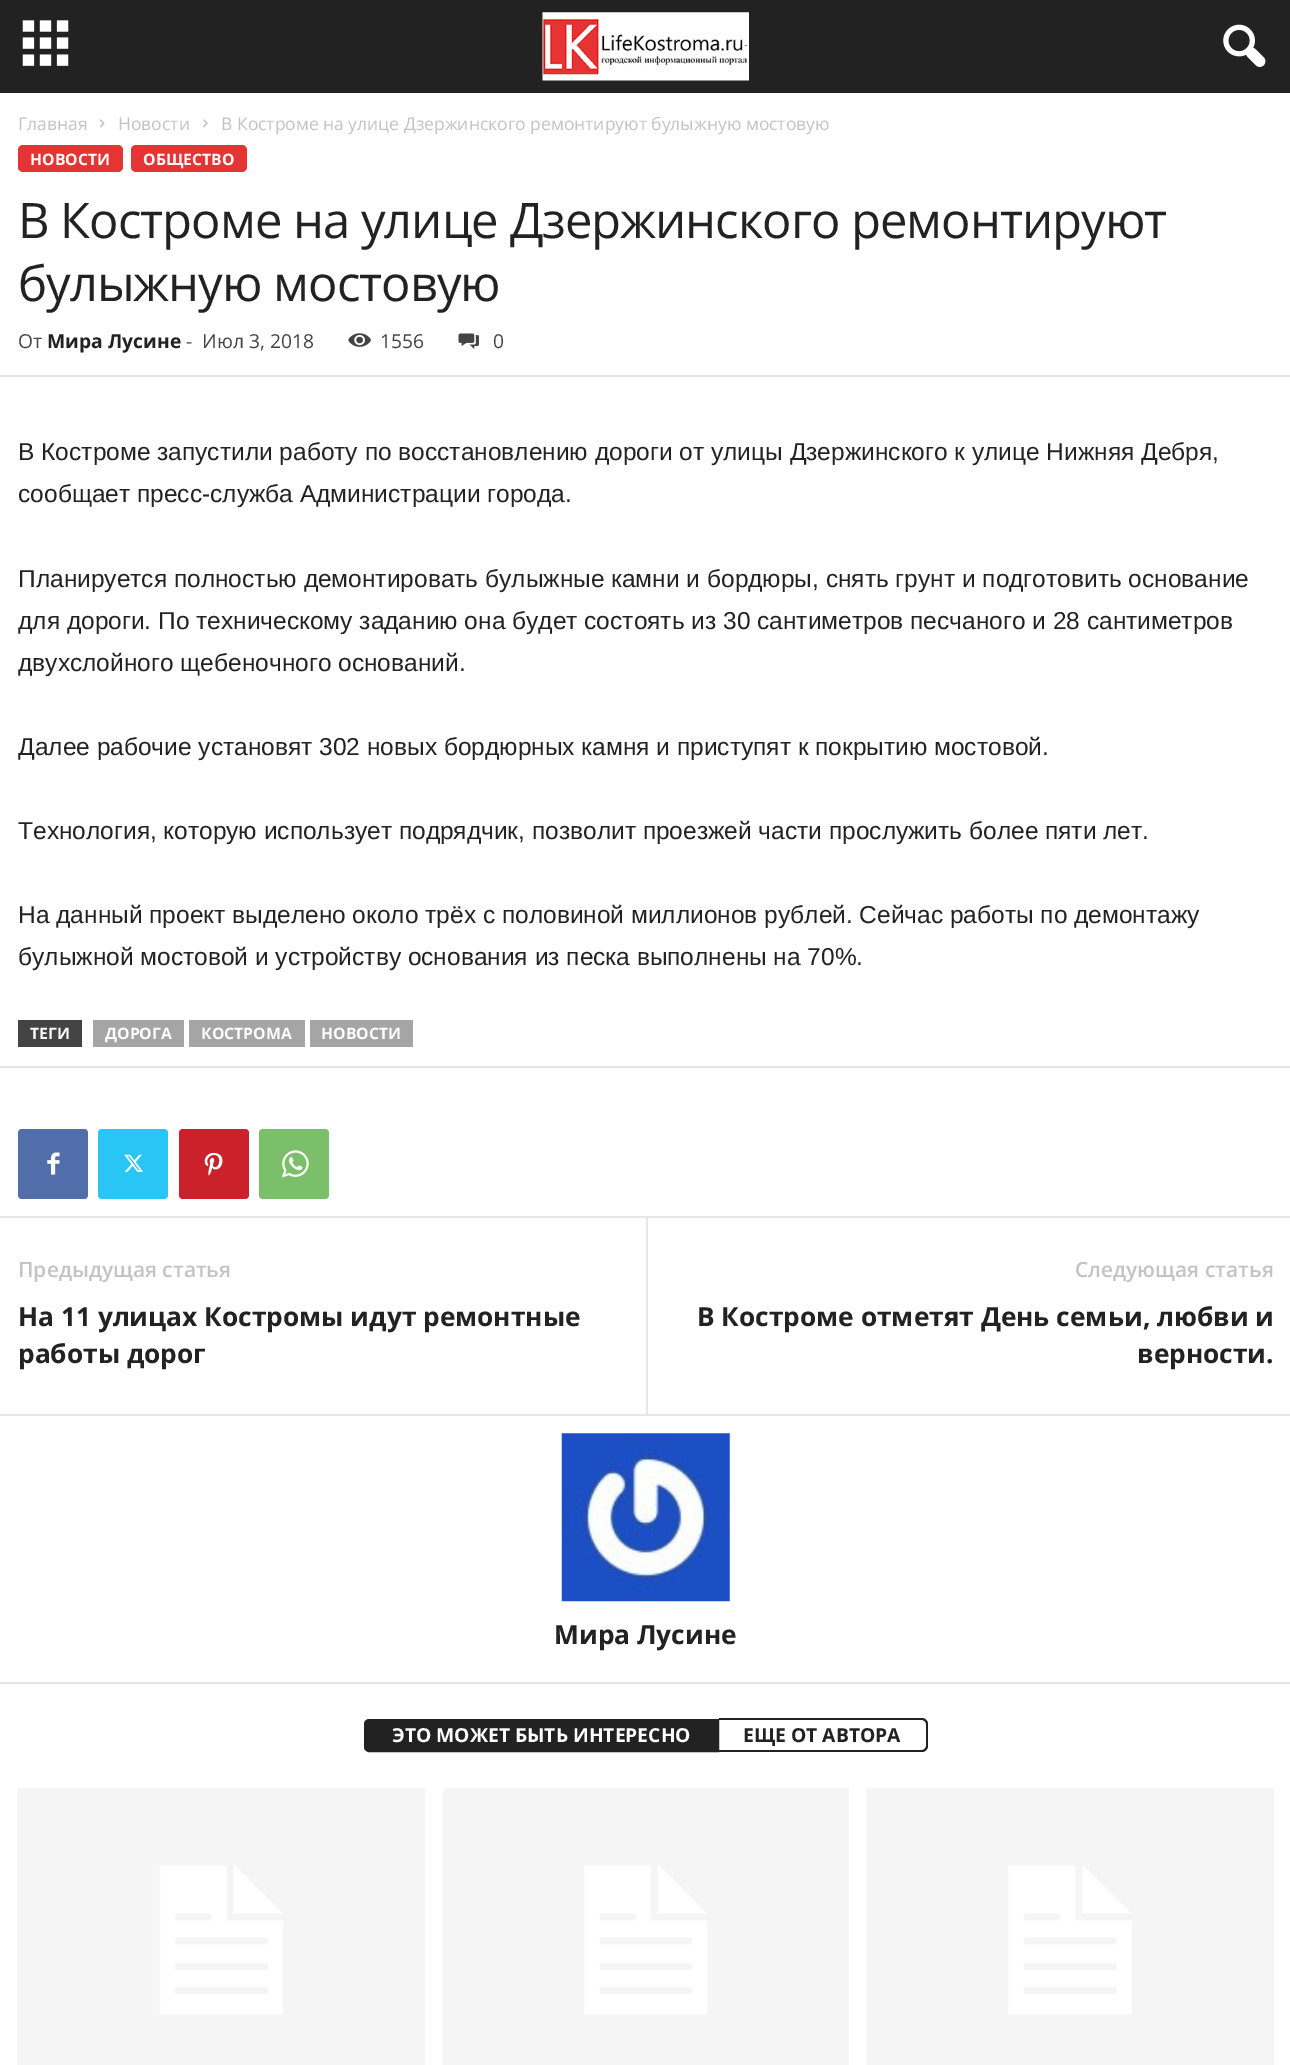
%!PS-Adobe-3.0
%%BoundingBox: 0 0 1290 2065
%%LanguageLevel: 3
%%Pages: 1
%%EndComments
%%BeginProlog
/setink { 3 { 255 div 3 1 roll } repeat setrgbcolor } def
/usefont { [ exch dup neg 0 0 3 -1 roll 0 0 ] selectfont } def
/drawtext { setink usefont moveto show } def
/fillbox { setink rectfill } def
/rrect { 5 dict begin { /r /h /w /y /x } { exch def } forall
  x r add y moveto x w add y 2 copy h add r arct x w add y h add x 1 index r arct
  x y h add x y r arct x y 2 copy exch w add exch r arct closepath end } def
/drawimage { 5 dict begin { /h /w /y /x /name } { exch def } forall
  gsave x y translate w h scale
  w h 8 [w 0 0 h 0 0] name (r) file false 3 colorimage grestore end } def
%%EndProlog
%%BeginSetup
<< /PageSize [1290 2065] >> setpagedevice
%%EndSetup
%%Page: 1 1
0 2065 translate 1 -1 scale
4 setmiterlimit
0 0 1290 2065 255 255 255 fillbox
0 0 1290 93 34 34 34 fillbox
(assets/img1.rgb) 22 20 47 46 drawimage
(assets/img2.rgb) 542 12 207 69 drawimage
(assets/img3.rgb) 1223 24 43 43 drawimage
(Главная) 18 130 /OpenSans-Regular 17.5 195 195 195 drawtext
(assets/img4.rgb) 99 119 6 9 drawimage
(Новости) 118 130 /OpenSans-Regular 17.5 195 195 195 drawtext
(assets/img5.rgb) 203 119 5 9 drawimage
(В Костроме на улице Дзержинского ремонтируют булыжную мостовую) 221 130 /OpenSans-Regular 17.5 195 195 195 drawtext
229 52 52 setink
18 145 105 27 5 rrect fill
(НОВОСТИ) 30 165 /OpenSans-Bold 15.75 255 255 255 drawtext
229 52 52 setink
131 145 116 27 5 rrect fill
(ОБЩЕСТВО) 143 165 /OpenSans-Bold 15.75 255 255 255 drawtext
/OpenSans-Regular 49 usefont
34 34 34 setink
18 238 moveto -1 0 (В Костроме на улице Дзержинского ремонтируют) ashow
18 301 moveto -1 0 (булыжную мостовую) ashow
(От) 18 348 /OpenSans-Regular 19.25 68 68 68 drawtext
(Мира Лусине) 47 348 /OpenSans-Bold 19.25 34 34 34 drawtext
(-) 186 348 /OpenSans-Regular 19.25 68 68 68 drawtext
(Июл 3, 2018) 202 348 /OpenSans-Regular 19.25 68 68 68 drawtext
(assets/img6.rgb) 348 333 23 14 drawimage
(1556) 380 348 /OpenSans-Regular 19.25 68 68 68 drawtext
(assets/img7.rgb) 458 333 21 17 drawimage
(0) 493 348 /OpenSans-Regular 19.25 68 68 68 drawtext
0 375 1290 2 230 230 230 fillbox
(В Костроме запустили работу по восстановлению дороги от улицы Дзержинского к улице Нижняя Дебря,) 18 460 /LiberationSans-Regular 24.5 34 34 34 drawtext
(сообщает пресс-служба Администрации города.) 18 502 /LiberationSans-Regular 24.5 34 34 34 drawtext
(Планируется полностью демонтировать булыжные камни и бордюры, снять грунт и подготовить основание) 18 587 /LiberationSans-Regular 24.5 34 34 34 drawtext
(для дороги. По техническому заданию она будет состоять из 30 сантиметров песчаного и 28 сантиметров) 18 629 /LiberationSans-Regular 24.5 34 34 34 drawtext
(двухслойного щебеночного оснований.) 18 671 /LiberationSans-Regular 24.5 34 34 34 drawtext
(Далее рабочие установят 302 новых бордюрных камня и приступят к покрытию мостовой.) 18 755 /LiberationSans-Regular 24.5 34 34 34 drawtext
(Технология, которую использует подрядчик, позволит проезжей части прослужить более пяти лет.) 18 839 /LiberationSans-Regular 24.5 34 34 34 drawtext
(На данный проект выделено около трёх с половиной миллионов рублей. Сейчас работы по демонтажу) 18 923 /LiberationSans-Regular 24.5 34 34 34 drawtext
(булыжной мостовой и устройству основания из песка выполнены на 70%.) 18 965 /LiberationSans-Regular 24.5 34 34 34 drawtext
18 1020 64 27 68 68 68 fillbox
(ТЕГИ) 30 1039 /OpenSans-Bold 15.75 255 255 255 drawtext
93 1020 91 27 165 165 165 fillbox
(ДОРОГА) 105 1039 /OpenSans-Bold 15.75 255 255 255 drawtext
189 1020 116 27 165 165 165 fillbox
(КОСТРОМА) 201 1039 /OpenSans-Bold 15.75 255 255 255 drawtext
310 1020 103 27 165 165 165 fillbox
(НОВОСТИ) 321 1039 /OpenSans-Bold 15.75 255 255 255 drawtext
0 1066 1290 2 230 230 230 fillbox
81 110 171 setink
18 1129 70 70 4 rrect fill
(assets/img8.rgb) 47 1152 13 23 drawimage
41 197 246 setink
98 1129 70 70 4 rrect fill
(assets/img9.rgb) 124 1154 19 18 drawimage
202 33 42 setink
179 1129 70 70 4 rrect fill
(assets/img10.rgb) 204 1152 19 24 drawimage
123 191 106 setink
259 1129 70 70 4 rrect fill
(assets/img11.rgb) 281 1150 28 28 drawimage
0 1216 1290 2 230 230 230 fillbox
(Предыдущая статья) 18 1277 /OpenSans-SemiBold 21 195 195 195 drawtext
(На 11 улицах Костромы идут ремонтные) 18 1326 /OpenSans-Bold 26.25 34 34 34 drawtext
(работы дорог) 18 1363 /OpenSans-Bold 26.25 34 34 34 drawtext
646 1218 2 196 230 230 230 fillbox
(Следующая статья) 1075 1277 /OpenSans-SemiBold 21 195 195 195 drawtext
(В Костроме отметят День семьи, любви и) 697 1326 /OpenSans-Bold 26.25 34 34 34 drawtext
(верности.) 1137 1363 /OpenSans-Bold 26.25 34 34 34 drawtext
0 1414 1290 2 230 230 230 fillbox
(assets/img12.rgb) 561 1433 169 169 drawimage
(Мира Лусине) 554 1644 /OpenSans-Bold 26.25 34 34 34 drawtext
0 1682 1290 2 230 230 230 fillbox
34 34 34 setink
369 1720 moveto 718 1720 lineto 718 1751 lineto 369 1751 lineto 367 1751 365 1749 365 1747 curveto 365 1724 lineto 365 1722 367 1720 369 1720 curveto closepath gsave fill grestore
2 setlinewidth
stroke
(ЭТО МОЖЕТ БЫТЬ ИНТЕРЕСНО) 392 1742 /OpenSans-Bold 19.25 255 255 255 drawtext
34 34 34 setink
719 1718 moveto 922 1718 lineto 925 1718 928 1721 928 1724 curveto 928 1746 lineto 928 1749 925 1752 922 1752 curveto 719 1752 lineto closepath 719 1720 moveto 922 1720 lineto 924 1720 926 1722 926 1724 curveto 926 1746 lineto 926 1748 924 1750 922 1750 curveto 719 1750 lineto closepath eofill
(ЕЩЕ ОТ АВТОРА) 743 1742 /OpenSans-Bold 19.25 34 34 34 drawtext
(assets/img13.rgb) 17 1788 408 277 drawimage
(assets/img14.rgb) 443 1788 406 277 drawimage
(assets/img15.rgb) 866 1788 408 277 drawimage
showpage
%%EOF
